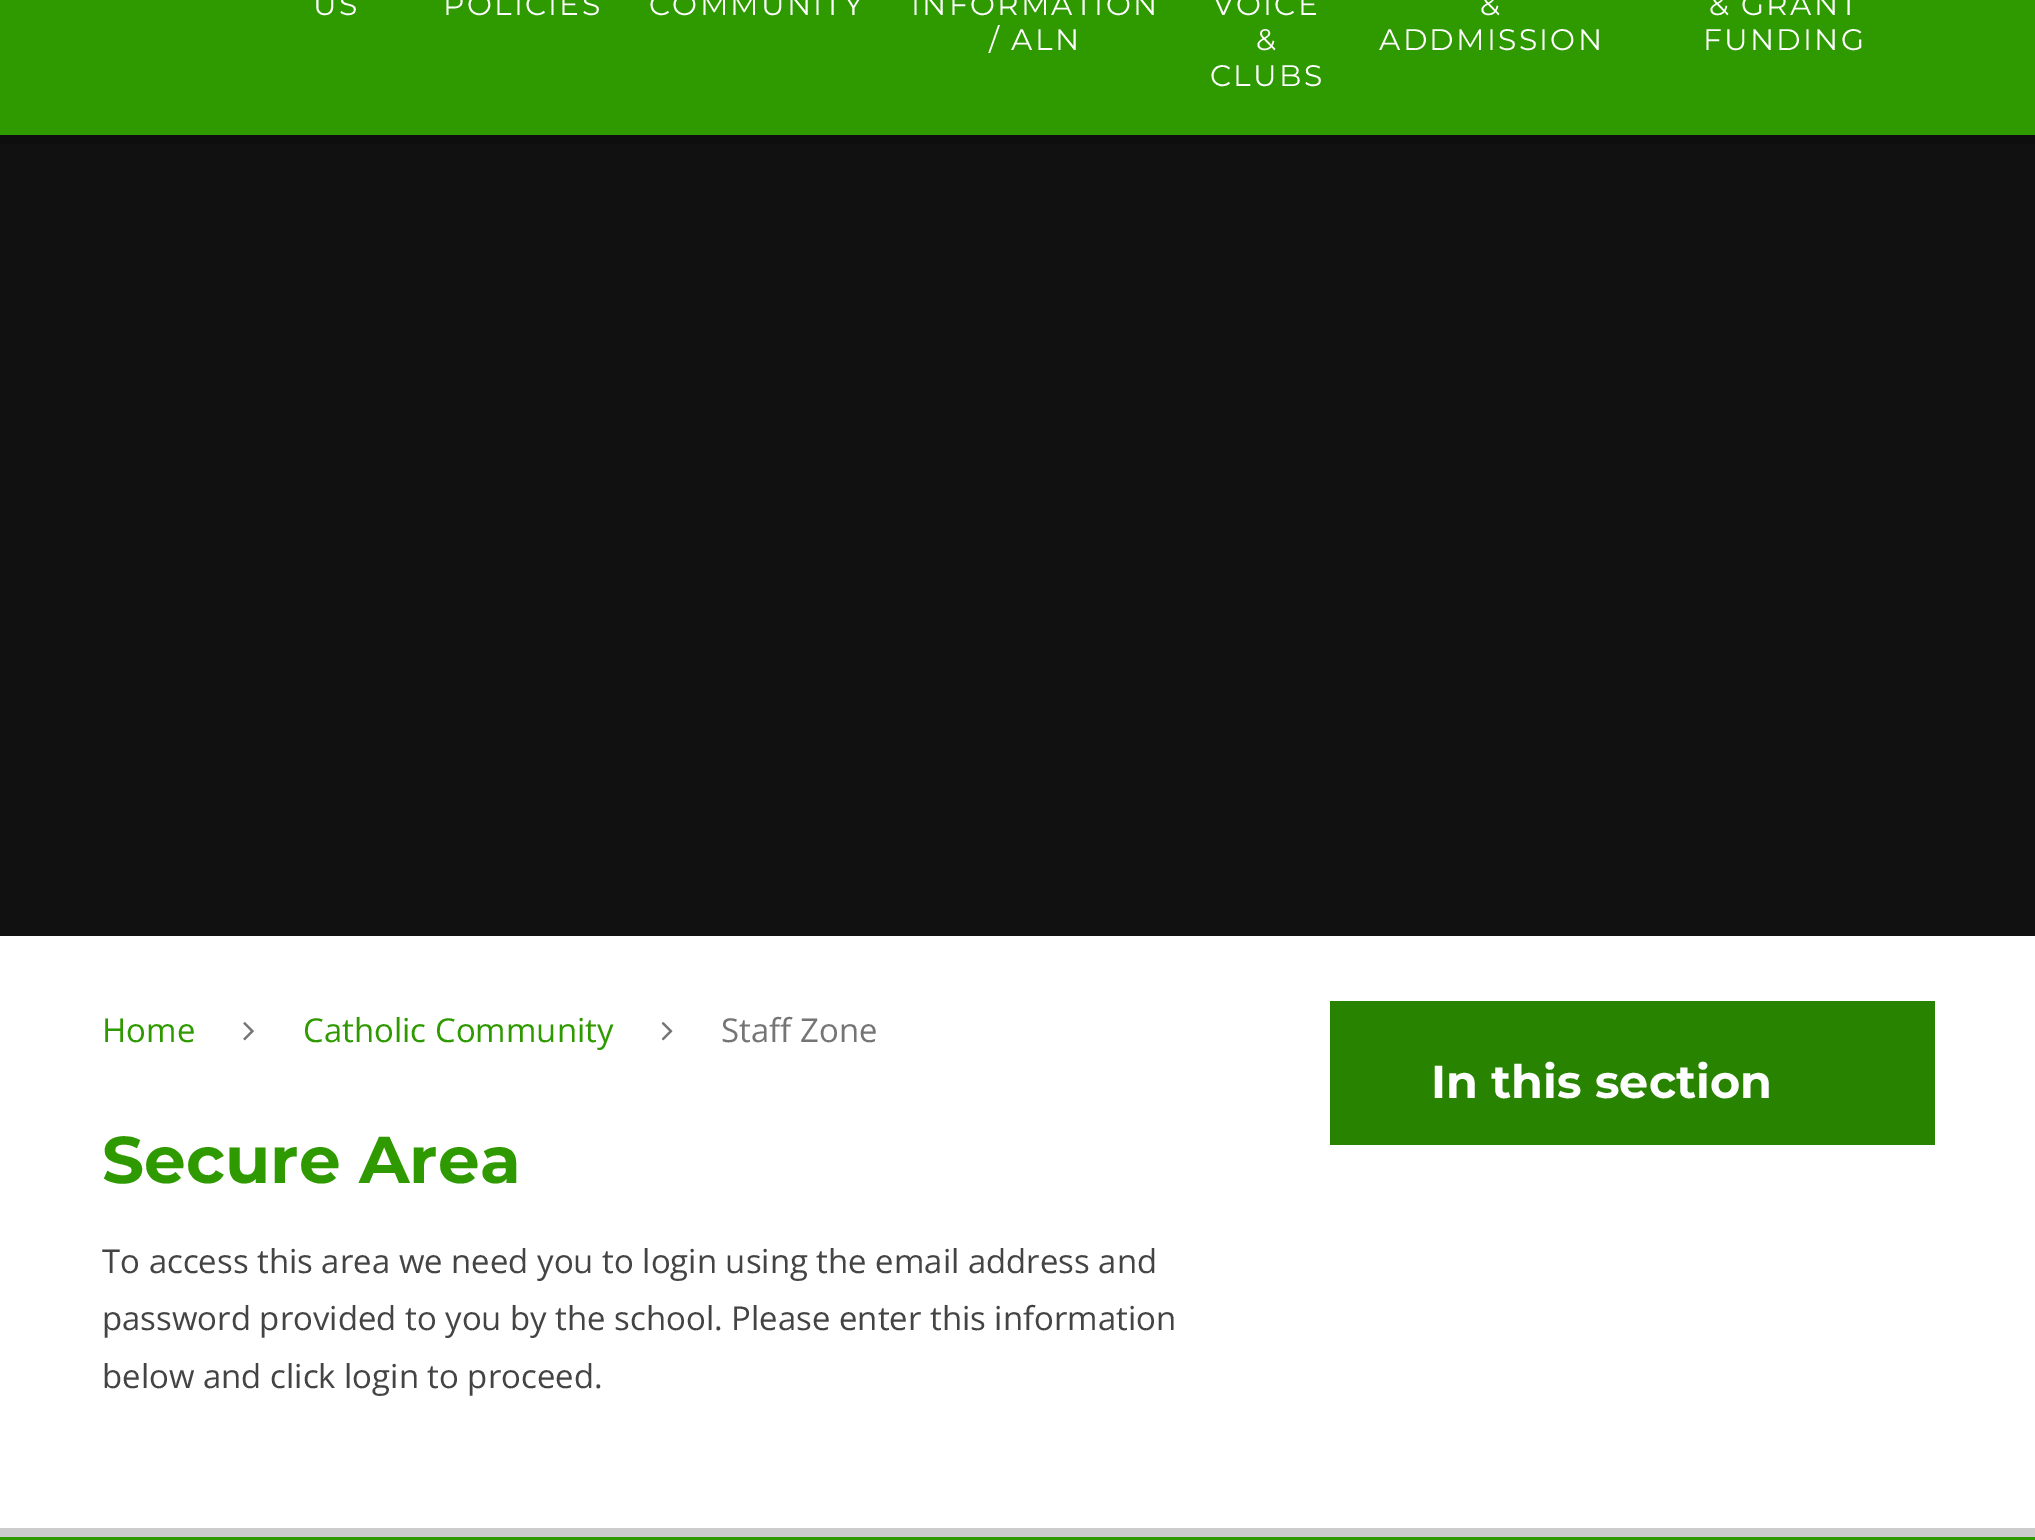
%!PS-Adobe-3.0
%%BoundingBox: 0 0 2035 1540
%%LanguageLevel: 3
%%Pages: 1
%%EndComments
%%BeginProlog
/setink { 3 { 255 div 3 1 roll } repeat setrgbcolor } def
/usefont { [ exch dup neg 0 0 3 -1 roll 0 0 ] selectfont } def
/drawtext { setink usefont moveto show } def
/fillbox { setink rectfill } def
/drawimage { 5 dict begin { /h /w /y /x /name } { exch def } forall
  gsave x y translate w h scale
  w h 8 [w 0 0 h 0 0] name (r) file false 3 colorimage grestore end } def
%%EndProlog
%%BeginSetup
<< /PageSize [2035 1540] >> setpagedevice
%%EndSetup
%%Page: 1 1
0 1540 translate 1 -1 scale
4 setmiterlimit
0 0 2035 1540 46 154 0 fillbox
/Montserrat-Regular 29.75 usefont
255 255 255 setink
313 15 moveto 2.25 0 (US) ashow
443 15 moveto 2.25 0 (POLICIES) ashow
649 15 moveto 2.25 0 (COMMUNITY) ashow
911 15 moveto 2.25 0 (INFORMATION) ashow
989 50 moveto 2.25 0 (/ ALN) ashow
1213 15 moveto 2.25 0 (VOICE) ashow
1256 50 moveto 2.25 0 (&) ashow
1210 86 moveto 2.25 0 (CLUBS) ashow
1480 15 moveto 2.25 0 (&) ashow
1379 50 moveto 2.25 0 (ADDMISSION) ashow
1709 15 moveto 2.25 0 (& GRANT) ashow
1703 50 moveto 2.25 0 (FUNDING) ashow
0 135 2035 9 14 14 14 fillbox
0 144 2035 792 17 17 17 fillbox
0 936 2035 592 255 255 255 fillbox
(Home) 102 1042 /OpenSans-Regular 32.95 46 154 0 drawtext
(assets/img1.rgb) 243 1022 11 19 drawimage
(Catholic Community) 303 1042 /OpenSans-Regular 32.95 46 154 0 drawtext
(assets/img2.rgb) 661 1022 12 19 drawimage
(Staff Zone) 721 1042 /OpenSans-Regular 32.95 117 117 117 drawtext
(Secure Area) 102 1183 /Montserrat-Bold 66 46 154 0 drawtext
(To access this area we need you to login using the email address and) 102 1273 /OpenSans-Regular 32.95 68 68 68 drawtext
(password provided to you by the school. Please enter this information) 102 1330 /OpenSans-Regular 32.95 68 68 68 drawtext
(below and click login to proceed.) 102 1388 /OpenSans-Regular 32.95 68 68 68 drawtext
1330 1001 605 144 39 131 0 fillbox
(In this section) 1431 1098 /Montserrat-Bold 46.25 255 255 255 drawtext
0 1528 2035 9 204 204 204 fillbox
showpage
%%EOF
